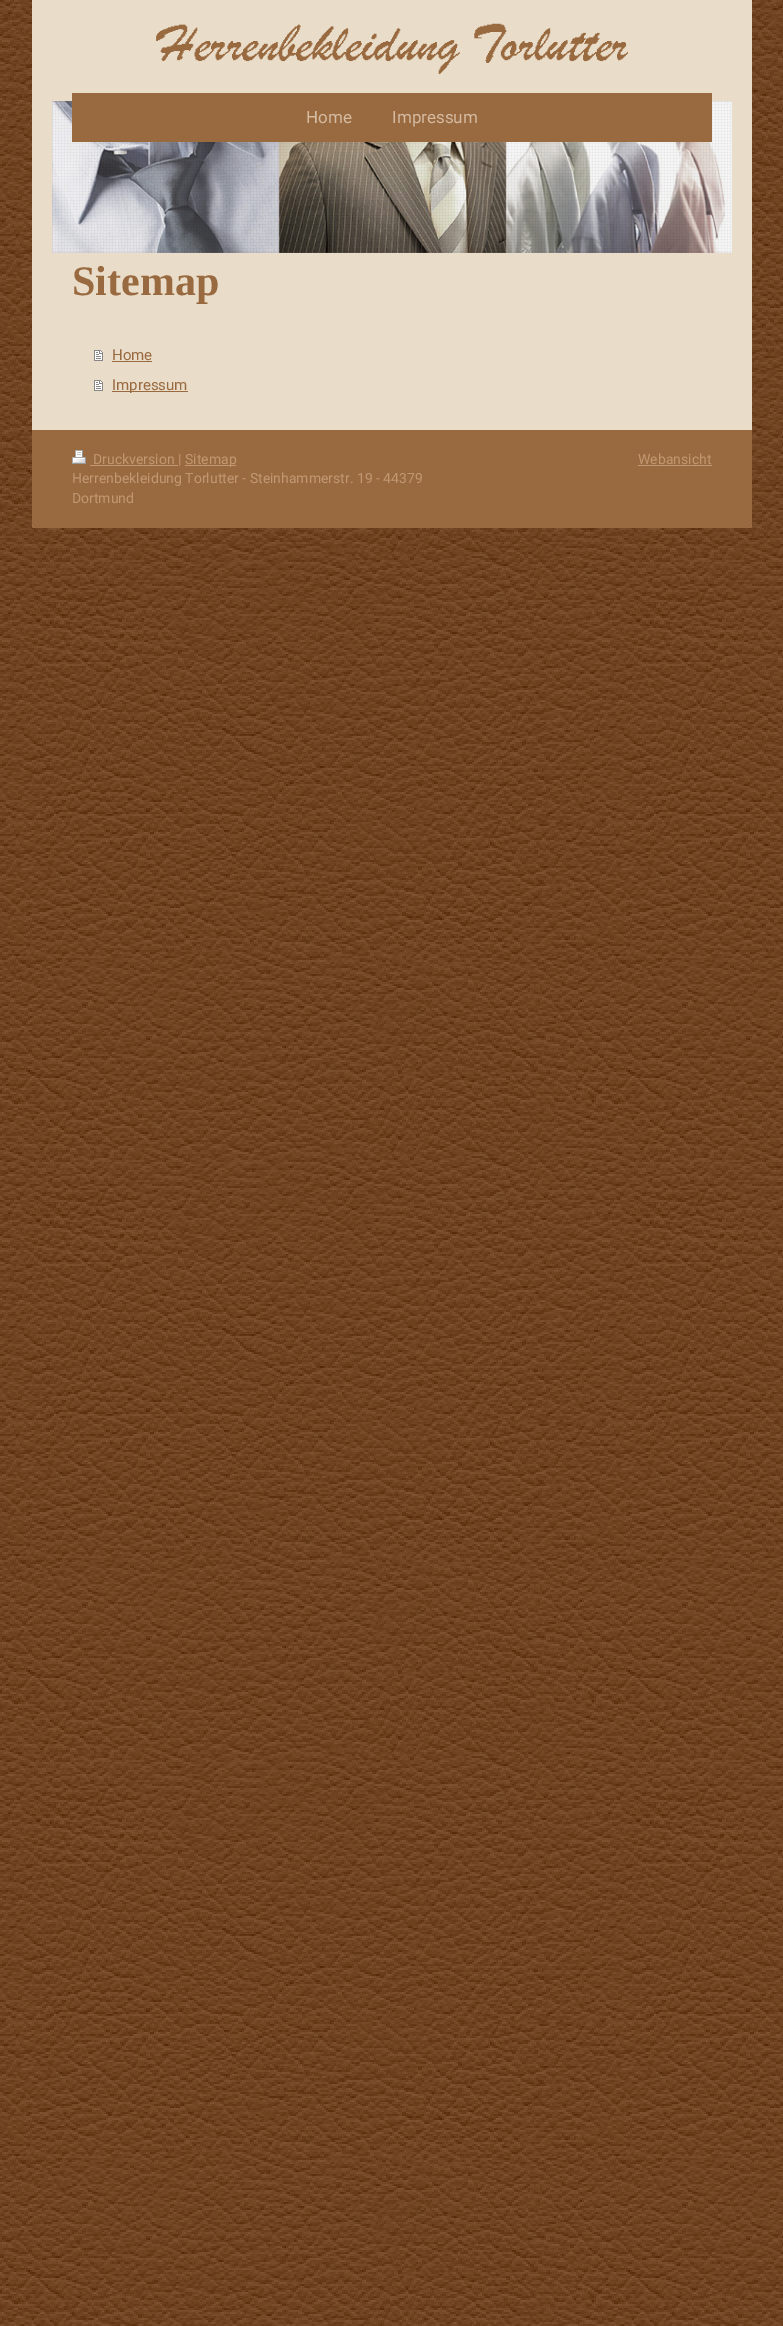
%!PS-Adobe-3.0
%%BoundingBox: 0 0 783 2326
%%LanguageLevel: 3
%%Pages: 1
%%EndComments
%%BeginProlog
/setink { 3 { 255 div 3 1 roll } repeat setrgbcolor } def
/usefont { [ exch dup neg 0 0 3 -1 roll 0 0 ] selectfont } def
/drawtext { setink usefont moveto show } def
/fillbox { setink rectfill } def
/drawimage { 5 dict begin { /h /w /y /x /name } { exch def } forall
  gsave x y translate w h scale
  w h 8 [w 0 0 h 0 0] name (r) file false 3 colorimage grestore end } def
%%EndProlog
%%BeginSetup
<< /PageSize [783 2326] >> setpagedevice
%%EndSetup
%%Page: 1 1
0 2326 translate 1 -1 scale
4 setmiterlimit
0 0 783 2326 255 255 255 fillbox
(assets/img1.rgb) 0 0 783 2326 drawimage
233 221 201 setink
32 0 moveto 752 0 lineto 752 525 lineto 752 526.5 750.5 528 749 528 curveto 35 528 lineto 33.5 528 32 526.5 32 525 curveto closepath fill
(assets/img2.rgb) 156 23 472 51 drawimage
(assets/img3.rgb) 52 101 680 152 drawimage
(assets/img4.rgb) 52 101 680 152 drawimage
72 93 640 49 153 106 64 fillbox
(Home) 306 123 /Roboto-Regular 17 214 187 163 drawtext
(Impressum) 392 123 /Roboto-Regular 17 214 187 163 drawtext
(Sitemap) 72 295 /LiberationSerif-Bold 42 153 106 64 drawtext
(assets/img5.rgb) 94 350 9 11 drawimage
(Home) 112 360 /Roboto-Regular 15 153 106 64 drawtext
112 361 40 1 153 106 64 fillbox
(assets/img5.rgb) 94 380 9 11 drawimage
112 391 76 1 153 106 64 fillbox
(Impressum) 112 390 /Roboto-Regular 15 153 106 64 drawtext
32 430 moveto 752 430 lineto 752 525 lineto 752 526.5 750.5 528 749 528 curveto 35 528 lineto 33.5 528 32 526.5 32 525 curveto closepath fill
(assets/img6.rgb) 72 450 14 14 drawimage
90 465 88 1 194 152 115 fillbox
(Druckversion |) 93 464 /Roboto-Regular 14 194 152 115 drawtext
185 465 51 1 194 152 115 fillbox
(Sitemap) 185 464 /Roboto-Regular 14 194 152 115 drawtext
(Herrenbekleidung Torlutter - Steinhammerstr. 19 - 44379) 72 483 /Roboto-Regular 14 194 152 115 drawtext
(Dortmund) 72 503 /Roboto-Regular 14 194 152 115 drawtext
(Webansicht) 638 464 /Roboto-Regular 14 194 152 115 drawtext
638 465 74 1 194 152 115 fillbox
showpage
%%EOF
